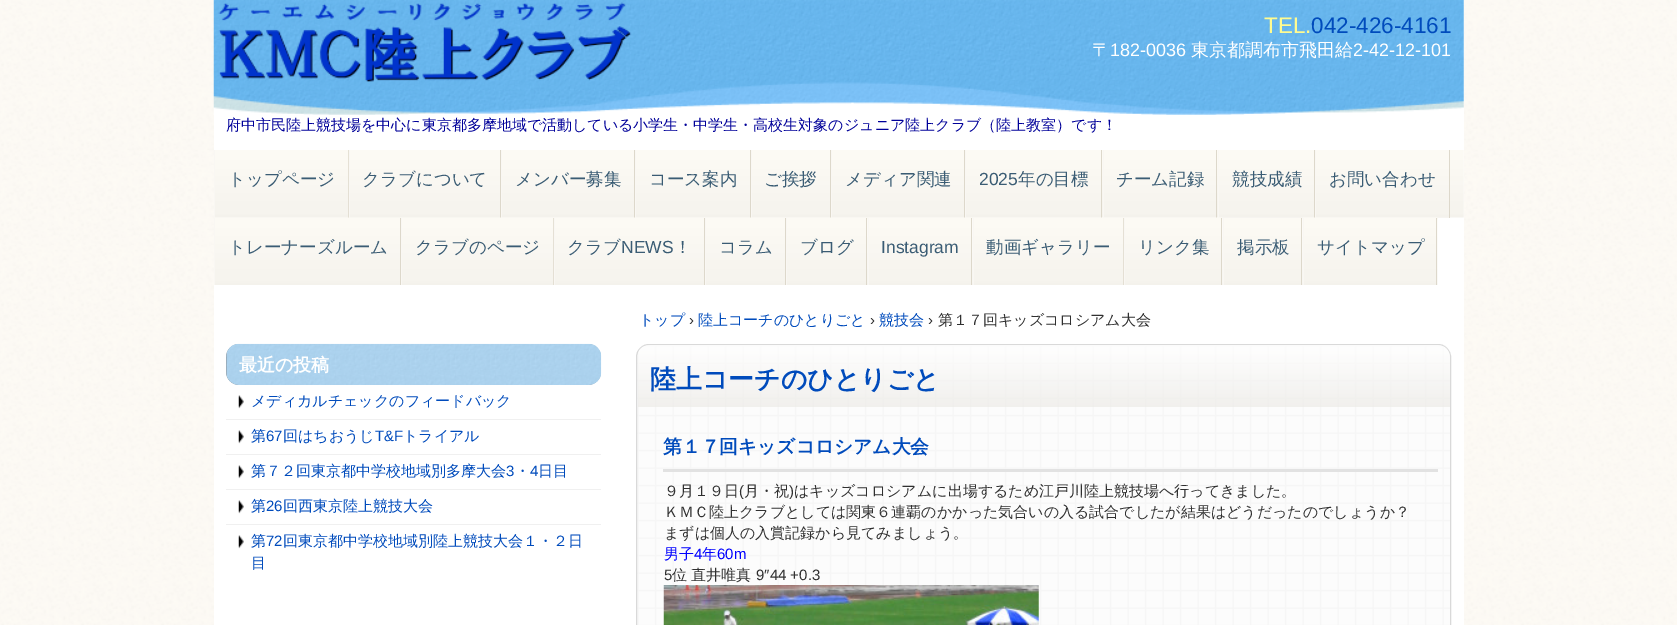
%!PS-Adobe-3.0
%%BoundingBox: 0 0 1677 625
%%LanguageLevel: 3
%%Pages: 1
%%EndComments
%%BeginProlog
/setink { 3 { 255 div 3 1 roll } repeat setrgbcolor } def
/usefont { [ exch dup neg 0 0 3 -1 roll 0 0 ] selectfont } def
/drawtext { setink usefont moveto show } def
/fillbox { setink rectfill } def
/rrect { 5 dict begin { /r /h /w /y /x } { exch def } forall
  x r add y moveto x w add y 2 copy h add r arct x w add y h add x 1 index r arct
  x y h add x y r arct x y 2 copy exch w add exch r arct closepath end } def
/drawimage { 5 dict begin { /h /w /y /x /name } { exch def } forall
  gsave x y translate w h scale
  w h 8 [w 0 0 h 0 0] name (r) file false 3 colorimage grestore end } def
%%EndProlog
%%BeginSetup
<< /PageSize [1677 625] >> setpagedevice
%%EndSetup
%%Page: 1 1
0 625 translate 1 -1 scale
4 setmiterlimit
0 0 1677 625 255 255 255 fillbox
(assets/img1.rgb) 0 0 1677 625 drawimage
214 0 1250 625 255 255 255 fillbox
(assets/img2.rgb) 213 0 1251 115 drawimage
(TEL.) 1264 33 /LiberationSans-Regular 22.5 255 251 144 drawtext
(042-426-4161) 1311 33 /LiberationSans-Regular 22.5 0 75 188 drawtext
(〒) 1092 56 /WenQuanYiZenHei-Medium 18 255 255 255 drawtext
(182-0036) 1110 56 /LiberationSans-Regular 18 255 255 255 drawtext
(東京都調布市飛田給) 1191 56 /WenQuanYiZenHei-Medium 18 255 255 255 drawtext
(2-42-12-101) 1353 56 /LiberationSans-Regular 18 255 255 255 drawtext
(assets/img3.rgb) 218 2 414 80 drawimage
(府中市民陸上競技場を中心に東京都多摩地域で活動している小学生・中学生・高校生対象のジュニア陸上クラブ（陸上教室）です！) 226 130 /WenQuanYiZenHei-Medium 15 0 0 153 drawtext
(assets/img4.rgb) 215 150 1249 68 drawimage
214 217 134 1 246 244 240 fillbox
348 150 1 68 221 216 203 fillbox
214 150 1 68 249 247 243 fillbox
(トップページ) 228 185 /WenQuanYiZenHei-Medium 17.5 58 92 116 drawtext
(assets/img5.rgb) 348 150 152 68 drawimage
500 150 1 68 221 216 203 fillbox
349 150 1 68 249 247 243 fillbox
(クラブについて) 362 185 /WenQuanYiZenHei-Medium 17.5 58 92 116 drawtext
502 217 249 1 246 244 240 fillbox
634 150 1 68 221 216 203 fillbox
501 150 1 68 249 247 243 fillbox
(メンバー募集) 515 185 /WenQuanYiZenHei-Medium 17.5 58 92 116 drawtext
750 150 1 68 221 216 203 fillbox
635 150 1 68 249 247 243 fillbox
(コース案内) 649 185 /WenQuanYiZenHei-Medium 17.5 58 92 116 drawtext
752 217 79 1 246 244 240 fillbox
830 150 1 68 221 216 203 fillbox
751 150 1 68 249 247 243 fillbox
(ご挨拶) 764 185 /WenQuanYiZenHei-Medium 17.5 58 92 116 drawtext
832 217 270 1 246 244 240 fillbox
964 150 1 68 221 216 203 fillbox
831 150 1 68 249 247 243 fillbox
(メディア関連) 845 185 /WenQuanYiZenHei-Medium 17.5 58 92 116 drawtext
1101 150 1 68 221 216 203 fillbox
965 150 1 68 249 247 243 fillbox
(2025) 979 185 /LiberationSans-Regular 17.5 58 92 116 drawtext
(年の目標) 1018 185 /WenQuanYiZenHei-Medium 17.5 58 92 116 drawtext
1103 217 114 1 246 244 240 fillbox
1216 150 1 68 221 216 203 fillbox
1103 150 1 68 249 247 243 fillbox
(チーム記録) 1116 185 /WenQuanYiZenHei-Medium 17.5 58 92 116 drawtext
1218 217 232 1 246 244 240 fillbox
1314 150 1 68 221 216 203 fillbox
1218 150 1 68 249 247 243 fillbox
(競技成績) 1232 185 /WenQuanYiZenHei-Medium 17.5 58 92 116 drawtext
1449 150 1 68 221 216 203 fillbox
1315 150 1 68 249 247 243 fillbox
(お問い合わせ) 1329 185 /WenQuanYiZenHei-Medium 17.5 58 92 116 drawtext
(assets/img6.rgb) 214 217 188 68 drawimage
400 218 1 67 221 216 203 fillbox
214 218 1 67 249 247 243 fillbox
(トレーナーズルーム) 228 253 /WenQuanYiZenHei-Medium 17.5 58 92 116 drawtext
(assets/img7.rgb) 401 217 153 68 drawimage
553 218 1 1 252 250 244 fillbox
553 218 1 67 221 216 203 fillbox
401 218 1 67 249 247 243 fillbox
(クラブのページ) 415 253 /WenQuanYiZenHei-Medium 17.5 58 92 116 drawtext
(assets/img8.rgb) 553 217 152 68 drawimage
704 218 1 67 221 216 203 fillbox
554 218 1 67 249 247 243 fillbox
(クラブ) 567 253 /WenQuanYiZenHei-Medium 17.5 58 92 116 drawtext
(NEWS) 621 253 /LiberationSans-Regular 17.5 58 92 116 drawtext
(！) 674 253 /WenQuanYiZenHei-Medium 17.5 58 92 116 drawtext
(assets/img9.rgb) 705 217 82 68 drawimage
785 218 1 67 221 216 203 fillbox
705 218 1 67 249 247 243 fillbox
(コラム) 719 253 /WenQuanYiZenHei-Medium 17.5 58 92 116 drawtext
(assets/img10.rgb) 786 217 82 68 drawimage
867 218 1 1 252 250 244 fillbox
866 218 1 67 221 216 203 fillbox
786 218 1 67 249 247 243 fillbox
(ブログ) 800 253 /WenQuanYiZenHei-Medium 17.5 58 92 116 drawtext
(assets/img11.rgb) 867 217 106 68 drawimage
972 218 1 1 252 250 244 fillbox
971 218 1 67 221 216 203 fillbox
868 218 1 67 249 247 243 fillbox
(Instagram) 881 253 /LiberationSans-Regular 17.5 58 92 116 drawtext
(assets/img12.rgb) 972 217 152 68 drawimage
1123 218 1 1 252 250 244 fillbox
1123 218 1 67 221 216 203 fillbox
973 218 1 67 249 247 243 fillbox
(動画ギャラリー) 986 253 /WenQuanYiZenHei-Medium 17.5 58 92 116 drawtext
(assets/img13.rgb) 1123 217 100 68 drawimage
1222 218 1 1 252 250 244 fillbox
1221 218 1 67 221 216 203 fillbox
1124 218 1 67 249 247 243 fillbox
(リンク集) 1138 253 /WenQuanYiZenHei-Medium 17.5 58 92 116 drawtext
(assets/img14.rgb) 1222 218 81 67 drawimage
1302 218 1 1 252 250 244 fillbox
1301 218 1 67 221 216 203 fillbox
1223 218 1 67 249 247 243 fillbox
(掲示板) 1237 253 /WenQuanYiZenHei-Medium 17.5 58 92 116 drawtext
(assets/img15.rgb) 1302 217 136 68 drawimage
1437 218 1 1 252 250 244 fillbox
1436 218 1 67 221 216 203 fillbox
1303 218 1 67 249 247 243 fillbox
(サイトマップ) 1317 253 /WenQuanYiZenHei-Medium 17.5 58 92 116 drawtext
(トップ) 639 325 /WenQuanYiZenHei-Medium 15 0 75 188 drawtext
(›) 689 325 /LiberationSans-Regular 15 48 48 48 drawtext
(陸上コーチのひとりごと) 698 325 /WenQuanYiZenHei-Medium 15 0 75 188 drawtext
(›) 870 325 /LiberationSans-Regular 15 48 48 48 drawtext
(競技会) 879 325 /WenQuanYiZenHei-Medium 15 0 75 188 drawtext
(›) 928 325 /LiberationSans-Regular 15 48 48 48 drawtext
(第１７回キッズコロシアム大会) 938 325 /WenQuanYiZenHei-Medium 15 48 48 48 drawtext
128 127 127 setink
226 344 375 41 13 rrect fill
(assets/img16.rgb) 226 343 376 42 drawimage
(最近の投稿) 239 371 /WenQuanYiZenHei-Bold 18 255 255 255 drawtext
(assets/img17.rgb) 238 395 6 14 drawimage
226 419 375 1 240 240 240 fillbox
(メディカルチェックのフィードバック) 251 406 /WenQuanYiZenHei-Medium 15 0 75 188 drawtext
(assets/img17.rgb) 238 430 6 14 drawimage
226 454 375 1 240 240 240 fillbox
(第) 251 441 /WenQuanYiZenHei-Medium 15 0 75 188 drawtext
(67) 266 441 /LiberationSans-Regular 15 0 75 188 drawtext
(回はちおうじ) 283 441 /WenQuanYiZenHei-Medium 15 0 75 188 drawtext
(T&F) 375 441 /LiberationSans-Regular 15 0 75 188 drawtext
(トライアル) 403 441 /WenQuanYiZenHei-Medium 15 0 75 188 drawtext
(assets/img17.rgb) 238 465 6 14 drawimage
226 489 375 1 240 240 240 fillbox
(第７２回東京都中学校地域別多摩大会) 251 476 /WenQuanYiZenHei-Medium 15 0 75 188 drawtext
(3) 506 476 /LiberationSans-Regular 15 0 75 188 drawtext
(・) 515 476 /WenQuanYiZenHei-Medium 15 0 75 188 drawtext
(4) 530 476 /LiberationSans-Regular 15 0 75 188 drawtext
(日目) 538 476 /WenQuanYiZenHei-Medium 15 0 75 188 drawtext
(assets/img17.rgb) 238 500 6 14 drawimage
226 524 375 1 240 240 240 fillbox
(第) 251 511 /WenQuanYiZenHei-Medium 15 0 75 188 drawtext
(26) 266 511 /LiberationSans-Regular 15 0 75 188 drawtext
(回西東京陸上競技大会) 283 511 /WenQuanYiZenHei-Medium 15 0 75 188 drawtext
(assets/img17.rgb) 238 535 6 14 drawimage
(第) 251 546 /WenQuanYiZenHei-Medium 15 0 75 188 drawtext
(72) 266 546 /LiberationSans-Regular 15 0 75 188 drawtext
(回東京都中学校地域別陸上競技大会１・２日) 283 546 /WenQuanYiZenHei-Medium 15 0 75 188 drawtext
(目) 251 568 /WenQuanYiZenHei-Medium 15 0 75 188 drawtext
(assets/img18.rgb) 636 344 815 281 drawimage
217 217 217 setink
636.5 344.5 814 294 12.5 rrect stroke
(assets/img19.rgb) 638 345 812 62 drawimage
(陸上コーチのひとりごと) 650 388 /WenQuanYiZenHei-Bold 25.9 0 75 188 drawtext
663 469 775 3 226 226 226 fillbox
(第１７回キッズコロシアム大会) 663 453 /WenQuanYiZenHei-Bold 18.75 0 75 188 drawtext
(９月１９日) 664 496 /WenQuanYiZenHei-Medium 15 48 48 48 drawtext
(\() 739 496 /LiberationSans-Regular 15 48 48 48 drawtext
(月・祝) 744 496 /WenQuanYiZenHei-Medium 15 48 48 48 drawtext
(\)) 789 496 /LiberationSans-Regular 15 48 48 48 drawtext
(はキッズコロシアムに出場するため江戸川陸上競技場へ行ってきました。) 794 496 /WenQuanYiZenHei-Medium 15 48 48 48 drawtext
(ＫＭＣ陸上クラブとしては関東６連覇のかかった気合いの入る試合でしたが結果はどうだったのでしょうか？) 664 517 /WenQuanYiZenHei-Medium 15 48 48 48 drawtext
(まずは個人の入賞記録から見てみましょう。) 664 538 /WenQuanYiZenHei-Medium 15 48 48 48 drawtext
(男子) 664 559 /WenQuanYiZenHei-Medium 15 0 0 255 drawtext
(4) 694 559 /LiberationSans-Regular 15 0 0 255 drawtext
(年) 702 559 /WenQuanYiZenHei-Medium 15 0 0 255 drawtext
(60m) 717 559 /LiberationSans-Regular 15 0 0 255 drawtext
(5) 664 580 /LiberationSans-Regular 15 48 48 48 drawtext
(位) 672 580 /WenQuanYiZenHei-Medium 15 48 48 48 drawtext
(直井唯真) 691 580 /WenQuanYiZenHei-Medium 15 48 48 48 drawtext
(9″44 +0.3) 756 580 /LiberationSans-Regular 15 48 48 48 drawtext
(assets/img20.rgb) 663 585 376 40 drawimage
showpage
%%EOF
